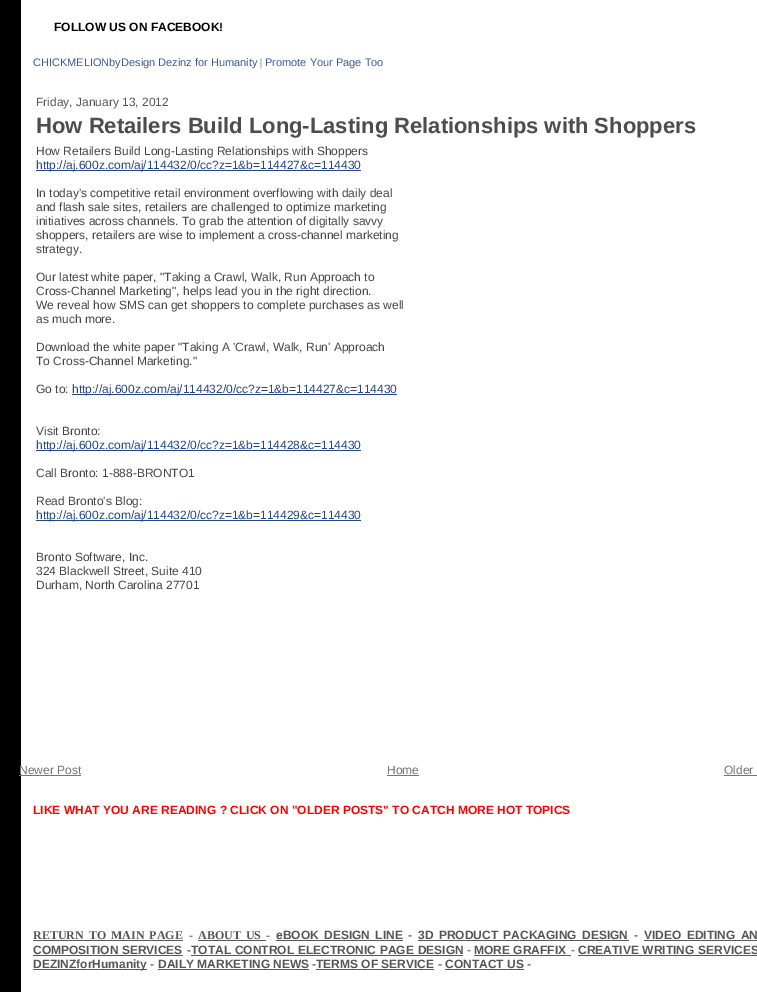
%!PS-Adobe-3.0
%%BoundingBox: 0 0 757 992
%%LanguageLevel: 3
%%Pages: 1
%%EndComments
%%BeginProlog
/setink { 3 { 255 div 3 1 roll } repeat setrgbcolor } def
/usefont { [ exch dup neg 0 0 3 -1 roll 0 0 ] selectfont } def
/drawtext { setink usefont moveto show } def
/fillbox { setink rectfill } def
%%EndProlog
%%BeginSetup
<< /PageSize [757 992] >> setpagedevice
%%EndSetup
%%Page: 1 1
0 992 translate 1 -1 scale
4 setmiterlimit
0 0 757 992 0 0 0 fillbox
21 0 736 992 255 255 255 fillbox
(FOLLOW US ON FACEBOOK!) 54 31 /LiberationSans-Bold 12 0 0 0 drawtext
(CHICKMELIONbyDesign Dezinz for Humanity) 33 66 /LiberationSans-Regular 11 59 89 152 drawtext
(|) 260 66 /LiberationSerif-Regular 11 85 85 85 drawtext
(Promote Your Page Too) 265 66 /LiberationSans-Regular 11 59 89 152 drawtext
(Friday, January 13, 2012) 36 106 /LiberationSans-Regular 12 85 85 85 drawtext
(How Retailers Build Long-Lasting Relationships with Shoppers) 36 133 /LiberationSans-Bold 22 77 77 77 drawtext
(How Retailers Build Long-Lasting Relationships with Shoppers) 36 155 /LiberationSans-Regular 12 69 69 69 drawtext
36 170 325 1 35 71 134 fillbox
(http://aj.600z.com/aj/114432/0/cc?z=1&b=114427&c=114430) 36 169 /LiberationSans-Regular 12 35 71 134 drawtext
(In today's competitive retail environment overflowing with daily deal) 36 197 /LiberationSans-Regular 12 69 69 69 drawtext
(and flash sale sites, retailers are challenged to optimize marketing) 36 211 /LiberationSans-Regular 12 69 69 69 drawtext
(initiatives across channels. To grab the attention of digitally savvy) 36 225 /LiberationSans-Regular 12 69 69 69 drawtext
(shoppers, retailers are wise to implement a cross-channel marketing) 36 239 /LiberationSans-Regular 12 69 69 69 drawtext
(strategy.) 36 253 /LiberationSans-Regular 12 69 69 69 drawtext
(Our latest white paper, "Taking a Crawl, Walk, Run Approach to) 36 281 /LiberationSans-Regular 12 69 69 69 drawtext
(Cross-Channel Marketing", helps lead you in the right direction.) 36 295 /LiberationSans-Regular 12 69 69 69 drawtext
(We reveal how SMS can get shoppers to complete purchases as well) 36 309 /LiberationSans-Regular 12 69 69 69 drawtext
(as much more.) 36 323 /LiberationSans-Regular 12 69 69 69 drawtext
(Download the white paper "Taking A 'Crawl, Walk, Run' Approach) 36 351 /LiberationSans-Regular 12 69 69 69 drawtext
(To Cross-Channel Marketing.") 36 365 /LiberationSans-Regular 12 69 69 69 drawtext
(Go to:) 36 393 /LiberationSans-Regular 12 69 69 69 drawtext
72 394 325 1 35 71 134 fillbox
(http://aj.600z.com/aj/114432/0/cc?z=1&b=114427&c=114430) 72 393 /LiberationSans-Regular 12 35 71 134 drawtext
(Visit Bronto:) 36 435 /LiberationSans-Regular 12 69 69 69 drawtext
36 450 325 1 35 71 134 fillbox
(http://aj.600z.com/aj/114432/0/cc?z=1&b=114428&c=114430) 36 449 /LiberationSans-Regular 12 35 71 134 drawtext
(Call Bronto: 1-888-BRONTO1) 36 477 /LiberationSans-Regular 12 69 69 69 drawtext
(Read Bronto's Blog:) 36 505 /LiberationSans-Regular 12 69 69 69 drawtext
36 520 325 1 35 71 134 fillbox
(http://aj.600z.com/aj/114432/0/cc?z=1&b=114429&c=114430) 36 519 /LiberationSans-Regular 12 35 71 134 drawtext
(Bronto Software, Inc.) 36 561 /LiberationSans-Regular 12 69 69 69 drawtext
(324 Blackwell Street, Suite 410) 36 575 /LiberationSans-Regular 12 69 69 69 drawtext
(Durham, North Carolina 27701) 36 589 /LiberationSans-Regular 12 69 69 69 drawtext
(Newer Post) 19 774 /LiberationSans-Regular 12 117 117 117 drawtext
19 775 62 1 117 117 117 fillbox
(Home) 387 774 /LiberationSans-Regular 12 117 117 117 drawtext
387 775 32 1 117 117 117 fillbox
(Older) 724 774 /LiberationSans-Regular 12 117 117 117 drawtext
724 775 33 1 117 117 117 fillbox
(LIKE WHAT YOU ARE READING ? CLICK ON "OLDER POSTS" TO CATCH MORE HOT TOPICS) 33 814 /LiberationSans-Bold 12 255 0 0 drawtext
/LiberationSerif-Bold 12 usefont
85 85 85 setink
33 939 moveto 2 0 32 (RETURN TO MAIN PAGE) widthshow
33 940 150 1 89 89 89 fillbox
(-) 189 939 /LiberationSerif-Bold 12 85 85 85 drawtext
198 939 moveto 2 0 32 (ABOUT US) widthshow
(-) 266 939 /LiberationSerif-Bold 12 85 85 85 drawtext
198 940 68 1 89 89 89 fillbox
/LiberationSans-Bold 12 usefont
85 85 85 setink
276 939 moveto 2 0 32 (eBOOK DESIGN LINE) widthshow
276 940 127 1 89 89 89 fillbox
(-) 408 939 /LiberationSans-Bold 12 85 85 85 drawtext
418 939 moveto 2 0 32 (3D PRODUCT PACKAGING DESIGN) widthshow
418 940 211 1 89 89 89 fillbox
(-) 634 939 /LiberationSans-Bold 12 85 85 85 drawtext
644 939 moveto 2 0 32 (VIDEO EDITING AN) widthshow
644 940 113 1 89 89 89 fillbox
(COMPOSITION SERVICES) 33 954 /LiberationSans-Bold 12 85 85 85 drawtext
33 955 150 1 89 89 89 fillbox
(-) 187 954 /LiberationSans-Bold 12 85 85 85 drawtext
191 955 272 1 89 89 89 fillbox
85 85 85 setink
191 954 moveto 0.5 0 32 (TOTAL CONTROL ELECTRONIC PAGE DESIGN) widthshow
(-) 467 954 /LiberationSans-Regular 12 85 85 85 drawtext
(MORE GRAFFIX) 474 954 /LiberationSans-Bold 12 85 85 85 drawtext
474 955 97 1 89 89 89 fillbox
(-) 571 954 /LiberationSans-Regular 12 85 85 85 drawtext
/LiberationSans-Bold 12 usefont
578 954 moveto 0.5 0 32 (CREATIVE WRITING SERVICES) widthshow
578 955 179 1 89 89 89 fillbox
33 969 114 1 89 89 89 fillbox
(DEZINZforHumanity) 33 968 /LiberationSans-Bold 12 85 85 85 drawtext
(-) 150 968 /LiberationSans-Bold 12 85 85 85 drawtext
(DAILY MARKETING NEWS) 158 968 /LiberationSans-Bold 12 85 85 85 drawtext
158 969 151 1 89 89 89 fillbox
(-) 312 968 /LiberationSans-Bold 12 85 85 85 drawtext
(TERMS OF SERVICE) 316 968 /LiberationSans-Bold 12 85 85 85 drawtext
316 969 118 1 89 89 89 fillbox
(-) 438 968 /LiberationSans-Bold 12 85 85 85 drawtext
(CONTACT US) 445 968 /LiberationSans-Bold 12 85 85 85 drawtext
445 969 79 1 89 89 89 fillbox
(-) 527 968 /LiberationSans-Bold 12 85 85 85 drawtext
showpage
%%EOF
